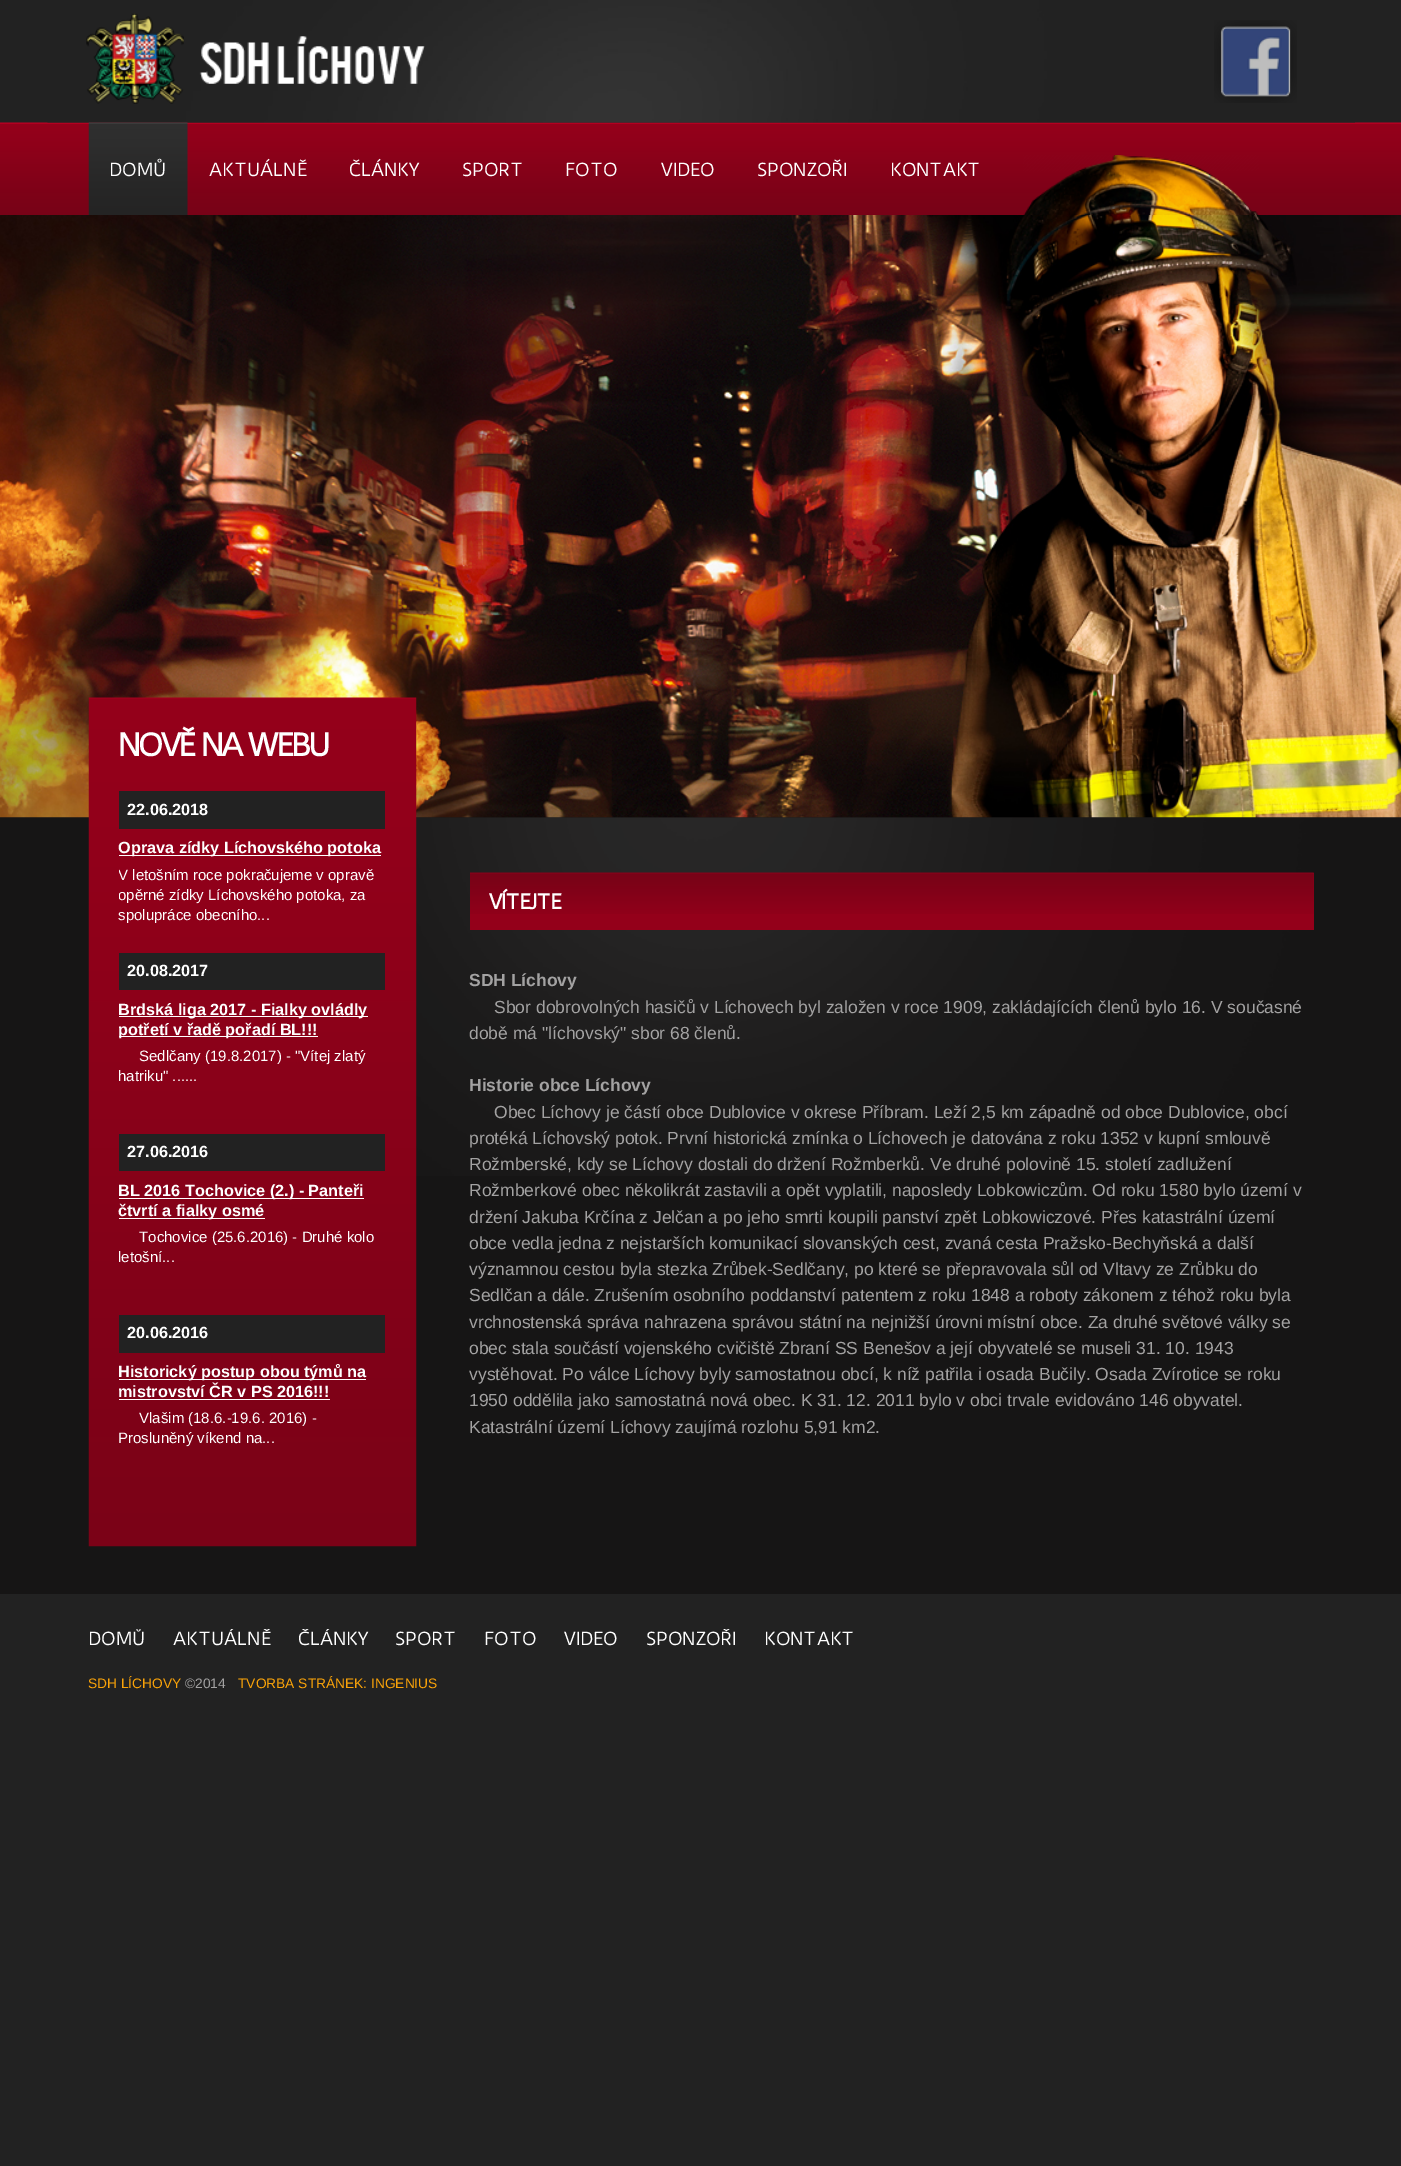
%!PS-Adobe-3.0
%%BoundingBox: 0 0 1401 2166
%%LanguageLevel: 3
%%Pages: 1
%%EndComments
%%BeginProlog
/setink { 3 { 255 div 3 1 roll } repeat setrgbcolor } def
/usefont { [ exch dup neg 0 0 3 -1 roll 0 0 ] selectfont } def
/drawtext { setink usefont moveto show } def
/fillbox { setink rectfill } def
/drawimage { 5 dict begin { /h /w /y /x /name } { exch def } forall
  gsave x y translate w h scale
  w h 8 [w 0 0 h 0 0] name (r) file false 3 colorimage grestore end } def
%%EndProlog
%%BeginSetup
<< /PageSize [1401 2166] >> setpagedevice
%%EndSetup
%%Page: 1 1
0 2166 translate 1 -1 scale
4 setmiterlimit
0 0 1401 2166 34 34 34 fillbox
0 817 1401 777 22 21 21 fillbox
(assets/img1.rgb) 0 0 1401 215 drawimage
(assets/img2.rgb) 0 215 1401 603 drawimage
(assets/img3.rgb) 47 0 1308 123 drawimage
(assets/img4.rgb) 0 817 1401 359 drawimage
(assets/img5.rgb) 86 13 339 91 drawimage
(assets/img6.rgb) 1214 20 83 83 drawimage
(assets/img7.rgb) 88 122 100 93 drawimage
(DOMŮ) 109 176 /DuruSans-Regular 17.5 255 255 255 drawtext
(AKTUÁLNĚ) 209 176 /DuruSans-Regular 17.5 255 255 255 drawtext
(ČLÁNKY) 349 176 /DuruSans-Regular 17.5 255 255 255 drawtext
(SPORT) 462 176 /DuruSans-Regular 17.5 255 255 255 drawtext
(FOTO) 565 176 /DuruSans-Regular 17.5 255 255 255 drawtext
(VIDEO) 661 176 /DuruSans-Regular 17.5 255 255 255 drawtext
(SPONZOŘI) 757 176 /DuruSans-Regular 17.5 255 255 255 drawtext
(KONTAKT) 890 176 /DuruSans-Regular 17.5 255 255 255 drawtext
(assets/img8.rgb) 1023 155 236 60 drawimage
(assets/img9.rgb) 88 697 329 850 drawimage
/DuruSans-Bold 30 usefont
118 756 moveto -2.5 0 (NOVĚ NA WEBU) ashow
119 791 266 38 34 34 34 fillbox
(22.06.2018) 127 815 /LiberationSans-Bold 16.25 255 255 255 drawtext
119 855 262 1 255 255 255 fillbox
(Oprava zídky Líchovského potoka) 118 853 /LiberationSans-Bold 16.25 255 255 255 drawtext
gsave
119 865 266 63 rectclip
(V letošním roce pokračujeme v opravě) 118 880 /LiberationSans-Regular 15 255 255 255 drawtext
(opěrné zídky Líchovského potoka, za) 118 900 /LiberationSans-Regular 15 255 255 255 drawtext
grestore
(spolupráce obecního...) 118 920 /LiberationSans-Regular 15 255 255 255 drawtext
119 953 266 37 34 34 34 fillbox
(20.08.2017) 127 976 /LiberationSans-Bold 16.25 255 255 255 drawtext
119 1016 249 1 255 255 255 fillbox
(Brdská liga 2017 - Fialky ovládly) 118 1015 /LiberationSans-Bold 16.25 255 255 255 drawtext
119 1036 199 1 255 255 255 fillbox
(potřetí v řadě pořadí BL!!!) 118 1035 /LiberationSans-Bold 16.25 255 255 255 drawtext
(Sedlčany \(19.8.2017\) - "Vítej zlatý) 139 1061 /LiberationSans-Regular 15 255 255 255 drawtext
(hatriku" ......) 118 1081 /LiberationSans-Regular 15 255 255 255 drawtext
119 1134 266 37 34 34 34 fillbox
(27.06.2016) 127 1157 /LiberationSans-Bold 16.25 255 255 255 drawtext
119 1198 245 1 255 255 255 fillbox
(BL 2016 Tochovice \(2.\) - Panteři) 118 1196 /LiberationSans-Bold 16.25 255 255 255 drawtext
119 1218 146 1 255 255 255 fillbox
(čtvrtí a fialky osmé) 118 1216 /LiberationSans-Bold 16.25 255 255 255 drawtext
(Tochovice \(25.6.2016\) - Druhé kolo) 139 1242 /LiberationSans-Regular 15 255 255 255 drawtext
(letošní...) 118 1262 /LiberationSans-Regular 15 255 255 255 drawtext
119 1315 266 38 34 34 34 fillbox
(20.06.2016) 127 1338 /LiberationSans-Bold 16.25 255 255 255 drawtext
119 1379 247 1 255 255 255 fillbox
(Historický postup obou týmů na) 118 1377 /LiberationSans-Bold 16.25 255 255 255 drawtext
(mistrovství ČR v PS 2016!!!) 118 1397 /LiberationSans-Bold 16.25 255 255 255 drawtext
119 1399 211 1 255 255 255 fillbox
(Vlašim \(18.6.-19.6. 2016\) -) 139 1423 /LiberationSans-Regular 15 255 255 255 drawtext
(Prosluněný víkend na...) 118 1443 /LiberationSans-Regular 15 255 255 255 drawtext
470 873 844 57 148 0 26 fillbox
(assets/img10.rgb) 470 872 844 42 drawimage
/DuruSans-Bold 20 usefont
255 255 255 setink
489 909 moveto -1.25 0 (VÍTEJTE) ashow
(SDH Líchovy) 469 986 /LiberationSans-Bold 17.5 163 162 162 drawtext
(Sbor dobrovolných hasičů v Líchovech byl založen v roce 1909, zakládajících členů bylo 16. V současné) 494 1013 /LiberationSans-Regular 17.5 163 162 162 drawtext
(době má "líchovský" sbor 68 členů.) 469 1039 /LiberationSans-Regular 17.5 163 162 162 drawtext
(Historie obce Líchovy) 469 1091 /LiberationSans-Bold 17.5 163 162 162 drawtext
(Obec Líchovy je částí obce Dublovice v okrese Příbram. Leží 2,5 km západně od obce Dublovice, obcí) 494 1118 /LiberationSans-Regular 17.5 163 162 162 drawtext
(protéká Líchovský potok. První historická zmínka o Líchovech je datována z roku 1352 v kupní smlouvě) 469 1144 /LiberationSans-Regular 17.5 163 162 162 drawtext
(Rožmberské, kdy se Líchovy dostali do držení Rožmberků. Ve druhé polovině 15. století zadlužení) 469 1170 /LiberationSans-Regular 17.5 163 162 162 drawtext
(Rožmberkové obec několikrát zastavili a opět vyplatili, naposledy Lobkowiczům. Od roku 1580 bylo území v) 469 1196 /LiberationSans-Regular 17.5 163 162 162 drawtext
(držení Jakuba Krčína z Jelčan a po jeho smrti koupili panství zpět Lobkowiczové. Přes katastrální území) 469 1223 /LiberationSans-Regular 17.5 163 162 162 drawtext
(obce vedla jedna z nejstarších komunikací slovanských cest, zvaná cesta Pražsko-Bechyňská a další) 469 1249 /LiberationSans-Regular 17.5 163 162 162 drawtext
(významnou cestou byla stezka Zrůbek-Sedlčany, po které se přepravovala sůl od Vltavy ze Zrůbku do) 469 1275 /LiberationSans-Regular 17.5 163 162 162 drawtext
(Sedlčan a dále. Zrušením osobního poddanství patentem z roku 1848 a roboty zákonem z téhož roku byla) 469 1301 /LiberationSans-Regular 17.5 163 162 162 drawtext
(vrchnostenská správa nahrazena správou státní na nejnižší úrovni místní obce. Za druhé světové války se) 469 1328 /LiberationSans-Regular 17.5 163 162 162 drawtext
(obec stala součástí vojenského cvičiště Zbraní SS Benešov a její obyvatelé se museli 31. 10. 1943) 469 1354 /LiberationSans-Regular 17.5 163 162 162 drawtext
(vystěhovat. Po válce Líchovy byly samostatnou obcí, k níž patřila i osada Bučily. Osada Zvírotice se roku) 469 1380 /LiberationSans-Regular 17.5 163 162 162 drawtext
(1950 oddělila jako samostatná nová obec. K 31. 12. 2011 bylo v obci trvale evidováno 146 obyvatel.) 469 1406 /LiberationSans-Regular 17.5 163 162 162 drawtext
(Katastrální území Líchovy zaujímá rozlohu 5,91 km2.) 469 1433 /LiberationSans-Regular 17.5 163 162 162 drawtext
gsave
89 1629 1225 30 rectclip
(DOMŮ) 88 1645 /DuruSans-Regular 17.5 255 255 255 drawtext
(AKTUÁLNĚ) 173 1645 /DuruSans-Regular 17.5 255 255 255 drawtext
(ČLÁNKY) 298 1645 /DuruSans-Regular 17.5 255 255 255 drawtext
grestore
(SPORT) 395 1645 /DuruSans-Regular 17.5 255 255 255 drawtext
(FOTO) 484 1645 /DuruSans-Regular 17.5 255 255 255 drawtext
(VIDEO) 564 1645 /DuruSans-Regular 17.5 255 255 255 drawtext
gsave
89 1629 1225 30 rectclip
(SPONZOŘI) 646 1645 /DuruSans-Regular 17.5 255 255 255 drawtext
grestore
(KONTAKT) 764 1645 /DuruSans-Regular 17.5 255 255 255 drawtext
(SDH LÍCHOVY) 88 1688 /LiberationSans-Regular 13.75 250 163 9 drawtext
(©2014) 185 1688 /LiberationSans-Regular 13.75 163 162 162 drawtext
(TVORBA STRÁNEK: INGENIUS) 238 1688 /LiberationSans-Regular 13.75 250 163 9 drawtext
showpage
%%EOF
